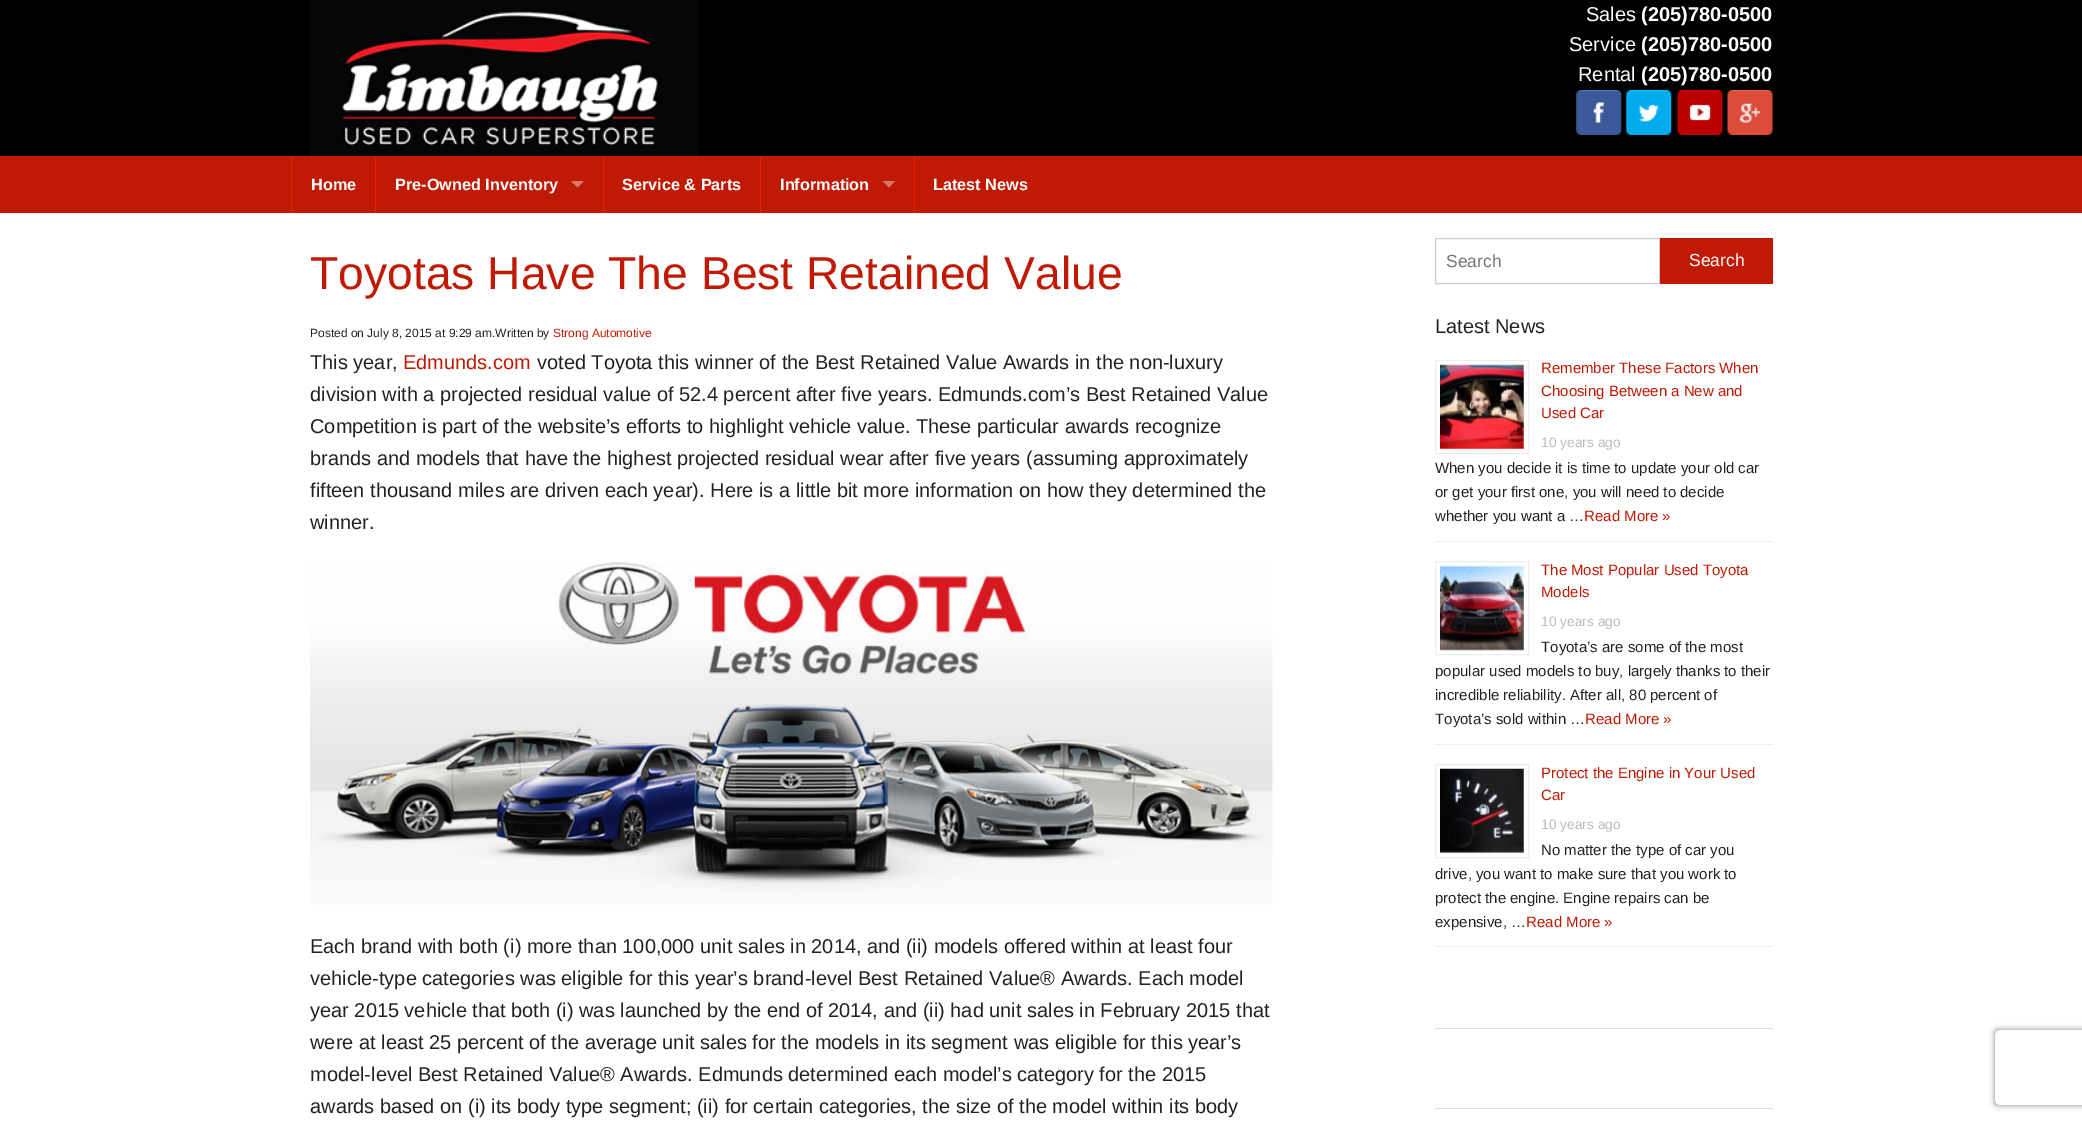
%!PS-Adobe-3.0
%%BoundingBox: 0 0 2082 1122
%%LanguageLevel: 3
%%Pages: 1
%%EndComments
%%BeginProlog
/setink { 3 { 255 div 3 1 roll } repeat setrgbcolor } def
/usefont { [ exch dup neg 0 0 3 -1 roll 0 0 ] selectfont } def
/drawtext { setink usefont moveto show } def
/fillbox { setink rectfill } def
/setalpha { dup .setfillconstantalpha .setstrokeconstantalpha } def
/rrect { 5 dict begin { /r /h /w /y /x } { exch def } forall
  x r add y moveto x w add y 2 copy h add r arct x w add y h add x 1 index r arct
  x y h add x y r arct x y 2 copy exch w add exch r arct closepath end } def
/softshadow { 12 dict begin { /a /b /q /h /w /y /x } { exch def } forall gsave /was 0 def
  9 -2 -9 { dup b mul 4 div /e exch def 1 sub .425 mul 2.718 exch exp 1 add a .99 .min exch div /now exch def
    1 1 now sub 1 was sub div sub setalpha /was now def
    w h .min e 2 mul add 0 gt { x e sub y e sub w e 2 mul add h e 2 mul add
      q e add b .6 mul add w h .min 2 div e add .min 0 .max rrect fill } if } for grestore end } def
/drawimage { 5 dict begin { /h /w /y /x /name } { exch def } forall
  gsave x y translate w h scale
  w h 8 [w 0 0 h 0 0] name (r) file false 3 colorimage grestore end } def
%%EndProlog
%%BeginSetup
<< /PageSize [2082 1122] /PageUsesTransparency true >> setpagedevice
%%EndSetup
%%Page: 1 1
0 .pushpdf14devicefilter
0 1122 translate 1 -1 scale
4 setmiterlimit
0 0 2082 1122 255 255 255 fillbox
0 0 2082 156 0 0 0 fillbox
(assets/img1.rgb) 310 0 388 156 drawimage
(Sales) 1586 21 /LiberationSans-Regular 20 255 255 255 drawtext
(\(205\)780-0500) 1641 21 /LiberationSans-Bold 20 255 255 255 drawtext
(Service) 1569 51 /LiberationSans-Regular 20 255 255 255 drawtext
(\(205\)780-0500) 1641 51 /LiberationSans-Bold 20 255 255 255 drawtext
(Rental) 1578 81 /LiberationSans-Regular 20 255 255 255 drawtext
(\(205\)780-0500) 1641 81 /LiberationSans-Bold 20 255 255 255 drawtext
(assets/img2.rgb) 1576 90 46 45 drawimage
(assets/img3.rgb) 1626 90 46 45 drawimage
(assets/img4.rgb) 1677 90 46 45 drawimage
(assets/img5.rgb) 1727 90 46 45 drawimage
0 156 2082 57 192 26 4 fillbox
291 156 1 57 232 31 5 fillbox
(Home) 311 190 /LiberationSans-Bold 16.25 255 255 255 drawtext
375 156 1 57 232 31 5 fillbox
(Pre-Owned Inventory) 395 190 /LiberationSans-Bold 16.25 255 255 255 drawtext
217 118 104 setink
571 181 moveto 584 181 lineto 577.5 187.5 lineto closepath fill
603 156 1 57 232 31 5 fillbox
(Service & Parts) 622 190 /LiberationSans-Bold 16.25 255 255 255 drawtext
760 156 1 57 232 31 5 fillbox
(Information) 780 190 /LiberationSans-Bold 16.25 255 255 255 drawtext
217 118 104 setink
882.5 181 moveto 895 181 lineto 889 187.5 lineto closepath fill
914 156 1 57 232 31 5 fillbox
(Latest News) 933 190 /LiberationSans-Bold 16.25 255 255 255 drawtext
(Toyotas Have The Best Retained Value) 310 289 /LiberationSans-Regular 46.25 192 26 4 drawtext
(Posted on July 8, 2015 at 9:29 am.Written by) 310 337 /LiberationSans-Regular 12 34 34 34 drawtext
(Strong Automotive) 553 337 /LiberationSans-Regular 12 192 26 4 drawtext
(This year,) 310 369 /LiberationSans-Regular 20 34 34 34 drawtext
(Edmunds.com) 403 369 /LiberationSans-Regular 20 192 26 4 drawtext
(voted Toyota this winner of the Best Retained Value Awards in the non-luxury) 537 369 /LiberationSans-Regular 20 34 34 34 drawtext
(division with a projected residual value of 52.4 percent after five years. Edmunds.com’s Best Retained Value) 310 401 /LiberationSans-Regular 20 34 34 34 drawtext
(Competition is part of the website’s efforts to highlight vehicle value. These particular awards recognize) 310 433 /LiberationSans-Regular 20 34 34 34 drawtext
(brands and models that have the highest projected residual wear after five years \(assuming approximately) 310 465 /LiberationSans-Regular 20 34 34 34 drawtext
(fifteen thousand miles are driven each year\). Here is a little bit more information on how they determined the) 310 497 /LiberationSans-Regular 20 34 34 34 drawtext
(winner.) 310 529 /LiberationSans-Regular 20 34 34 34 drawtext
(assets/img6.rgb) 310 562 963 343 drawimage
(Each brand with both \(i\) more than 100,000 unit sales in 2014, and \(ii\) models offered within at least four) 310 953 /LiberationSans-Regular 20 34 34 34 drawtext
(vehicle-type categories was eligible for this year’s brand-level Best Retained Value® Awards. Each model) 310 985 /LiberationSans-Regular 20 34 34 34 drawtext
(year 2015 vehicle that both \(i\) was launched by the end of 2014, and \(ii\) had unit sales in February 2015 that) 310 1017 /LiberationSans-Regular 20 34 34 34 drawtext
(were at least 25 percent of the average unit sales for the models in its segment was eligible for this year’s) 310 1049 /LiberationSans-Regular 20 34 34 34 drawtext
(model-level Best Retained Value® Awards. Edmunds determined each model’s category for the 2015) 310 1081 /LiberationSans-Regular 20 34 34 34 drawtext
(awards based on \(i\) its body type segment; \(ii\) for certain categories, the size of the model within its body) 310 1113 /LiberationSans-Regular 20 34 34 34 drawtext
204 204 204 setink
1435.5 238.5 224 45 rectstroke
(Search) 1446 267 /LiberationSans-Regular 17.5 117 117 117 drawtext
1660 238 113 46 192 26 4 fillbox
(Search) 1689 266 /LiberationSans-Regular 17.5 255 255 255 drawtext
(Latest News) 1435 333 /LiberationSans-Regular 20 34 34 34 drawtext
1435 541 338 1 238 238 238 fillbox
1435.5 360.5 93 93 rectstroke
(assets/img7.rgb) 1440 364 84 85 drawimage
(Remember These Factors When) 1541 373 /LiberationSans-Regular 15 192 26 4 drawtext
(Choosing Between a New and) 1541 396 /LiberationSans-Regular 15 192 26 4 drawtext
(Used Car) 1541 418 /LiberationSans-Regular 15 192 26 4 drawtext
(10 years ago) 1541 447 /LiberationSans-Regular 13.75 187 187 187 drawtext
(When you decide it is time to update your old car) 1435 473 /LiberationSans-Regular 15 34 34 34 drawtext
(or get your first one, you will need to decide) 1435 497 /LiberationSans-Regular 15 34 34 34 drawtext
(whether you want a …) 1435 521 /LiberationSans-Regular 15 34 34 34 drawtext
(Read More ») 1584 521 /LiberationSans-Regular 15 192 26 4 drawtext
1435 744 338 1 238 238 238 fillbox
1435.5 561.5 93 93 rectstroke
(assets/img8.rgb) 1440 565 84 86 drawimage
(The Most Popular Used Toyota) 1541 575 /LiberationSans-Regular 15 192 26 4 drawtext
(Models) 1541 597 /LiberationSans-Regular 15 192 26 4 drawtext
(10 years ago) 1541 626 /LiberationSans-Regular 13.75 187 187 187 drawtext
(Toyota’s are some of the most) 1541 652 /LiberationSans-Regular 15 34 34 34 drawtext
(popular used models to buy, largely thanks to their) 1435 676 /LiberationSans-Regular 15 34 34 34 drawtext
(incredible reliability. After all, 80 percent of) 1435 700 /LiberationSans-Regular 15 34 34 34 drawtext
(Toyota’s sold within …) 1435 724 /LiberationSans-Regular 15 34 34 34 drawtext
(Read More ») 1585 724 /LiberationSans-Regular 15 192 26 4 drawtext
1435 946 338 1 238 238 238 fillbox
1435.5 764.5 93 93 rectstroke
(assets/img9.rgb) 1440 768 84 85 drawimage
(Protect the Engine in Your Used) 1541 778 /LiberationSans-Regular 15 192 26 4 drawtext
(Car) 1541 800 /LiberationSans-Regular 15 192 26 4 drawtext
(10 years ago) 1541 829 /LiberationSans-Regular 13.75 187 187 187 drawtext
(No matter the type of car you) 1541 855 /LiberationSans-Regular 15 34 34 34 drawtext
(drive, you want to make sure that you work to) 1435 879 /LiberationSans-Regular 15 34 34 34 drawtext
(protect the engine. Engine repairs can be) 1435 903 /LiberationSans-Regular 15 34 34 34 drawtext
(expensive, …) 1435 927 /LiberationSans-Regular 15 34 34 34 drawtext
(Read More ») 1526 927 /LiberationSans-Regular 15 192 26 4 drawtext
1435 1028 338 1 221 221 221 fillbox
1435 1108 338 1 221 221 221 fillbox
gsave
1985 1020 moveto 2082 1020 lineto 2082 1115 lineto 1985 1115 lineto closepath 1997.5 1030 moveto 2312.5 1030 lineto 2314 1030 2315 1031 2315 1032.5 curveto 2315 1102.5 lineto 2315 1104 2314 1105 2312.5 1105 curveto 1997.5 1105 lineto 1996 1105 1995 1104 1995 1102.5 curveto 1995 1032.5 lineto 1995 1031 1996 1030 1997.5 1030 curveto closepath eoclip newpath
128 128 128 setink
1995 1030 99 75 2.5 3 1 softshadow
grestore
.poppdf14devicefilter showpage
%%EOF
